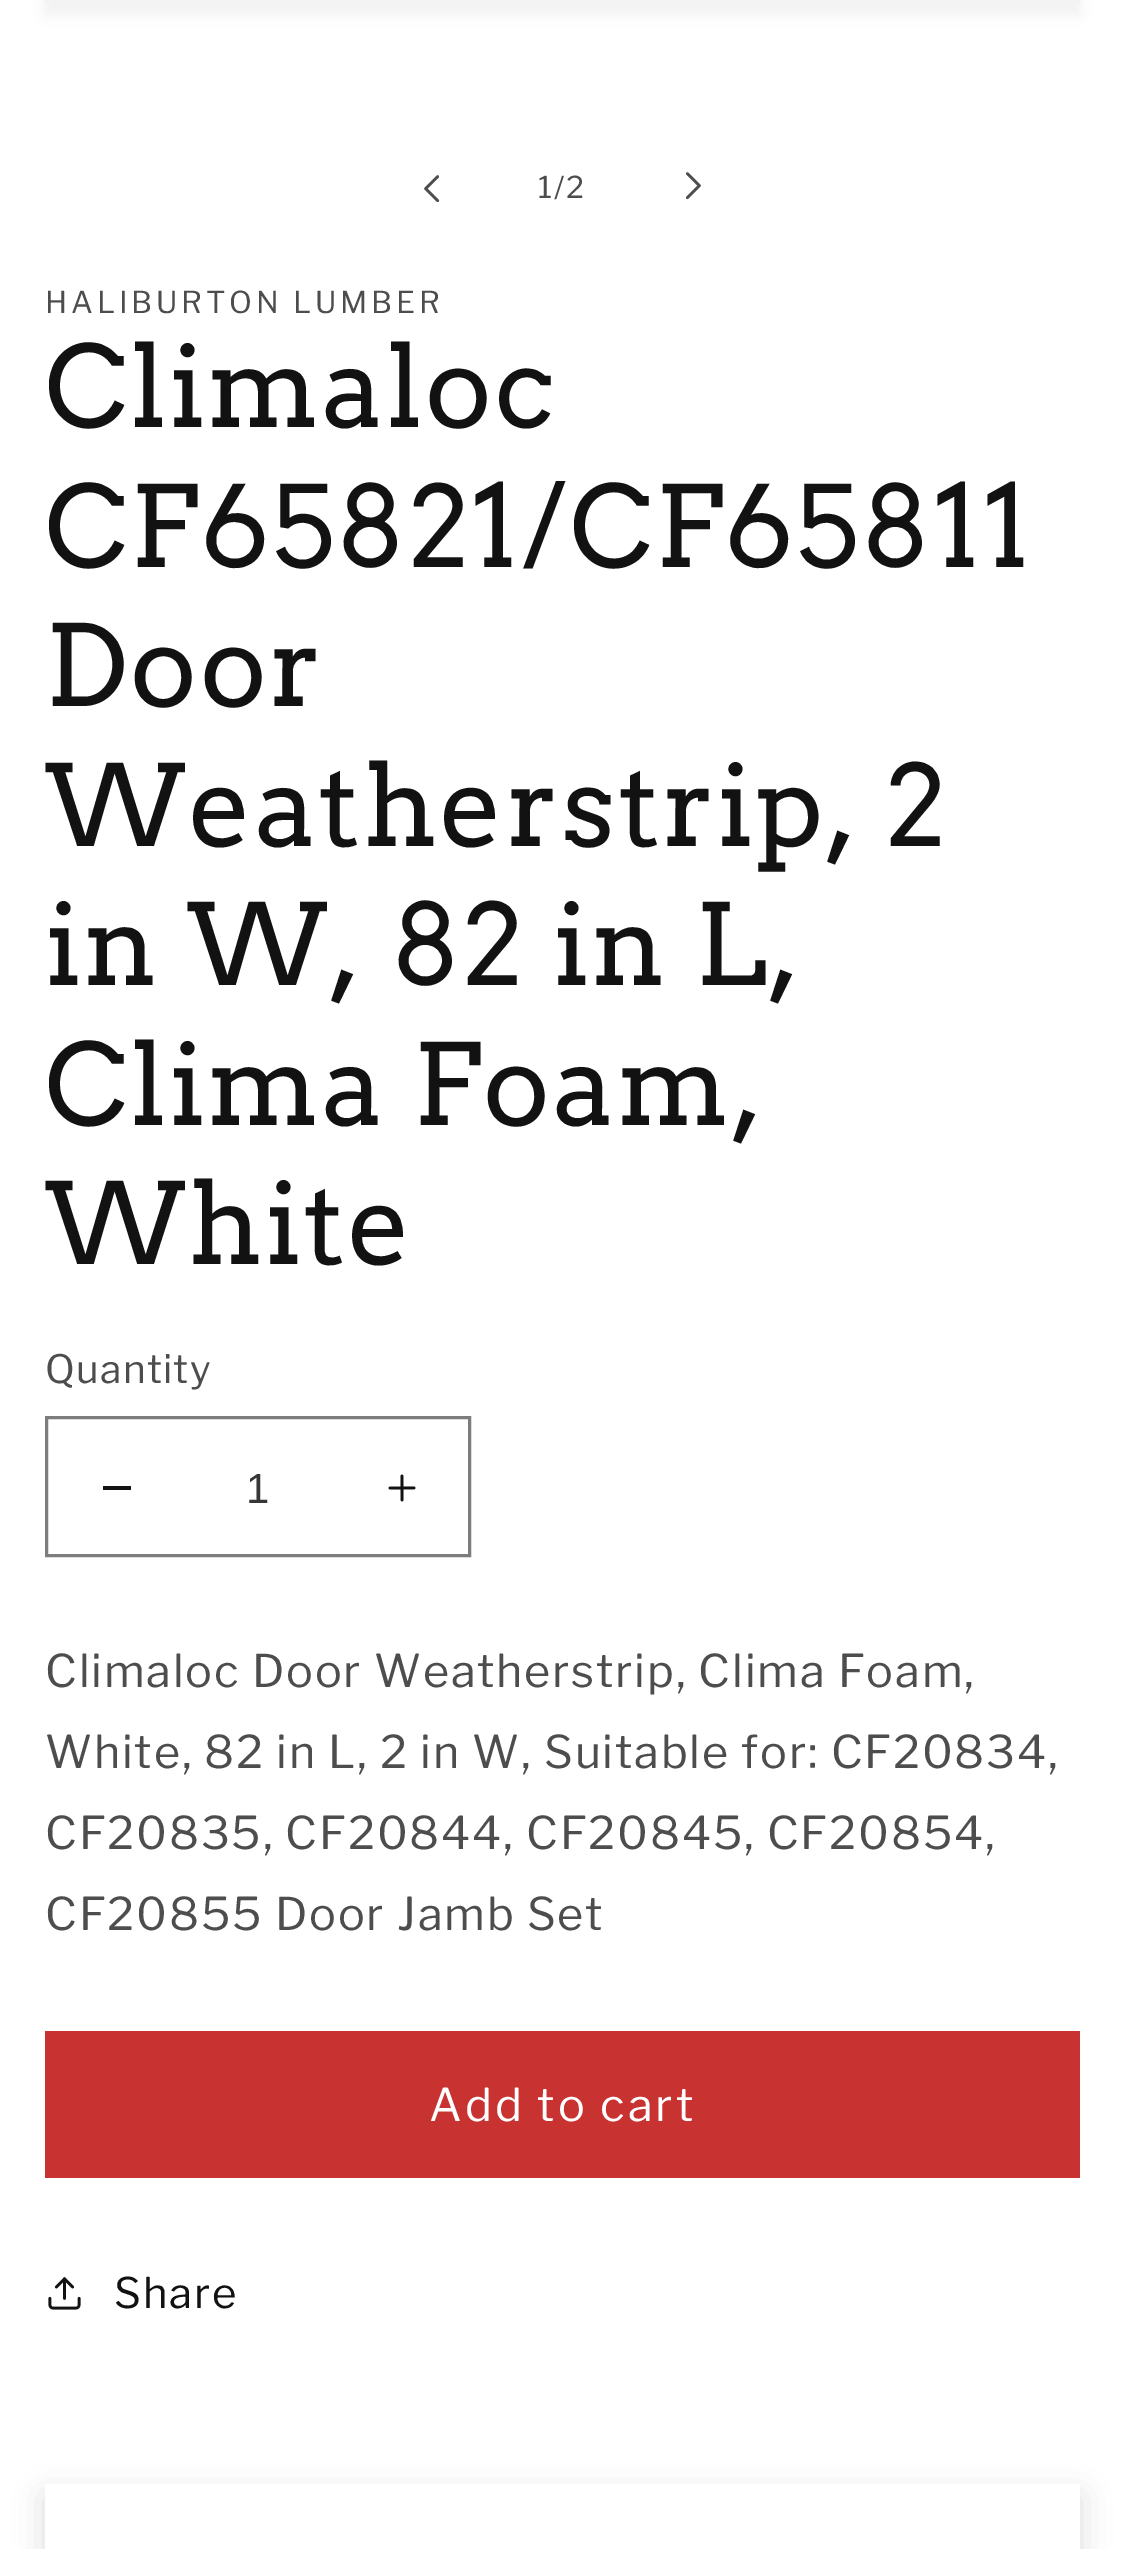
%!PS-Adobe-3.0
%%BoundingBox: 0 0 1124 2549
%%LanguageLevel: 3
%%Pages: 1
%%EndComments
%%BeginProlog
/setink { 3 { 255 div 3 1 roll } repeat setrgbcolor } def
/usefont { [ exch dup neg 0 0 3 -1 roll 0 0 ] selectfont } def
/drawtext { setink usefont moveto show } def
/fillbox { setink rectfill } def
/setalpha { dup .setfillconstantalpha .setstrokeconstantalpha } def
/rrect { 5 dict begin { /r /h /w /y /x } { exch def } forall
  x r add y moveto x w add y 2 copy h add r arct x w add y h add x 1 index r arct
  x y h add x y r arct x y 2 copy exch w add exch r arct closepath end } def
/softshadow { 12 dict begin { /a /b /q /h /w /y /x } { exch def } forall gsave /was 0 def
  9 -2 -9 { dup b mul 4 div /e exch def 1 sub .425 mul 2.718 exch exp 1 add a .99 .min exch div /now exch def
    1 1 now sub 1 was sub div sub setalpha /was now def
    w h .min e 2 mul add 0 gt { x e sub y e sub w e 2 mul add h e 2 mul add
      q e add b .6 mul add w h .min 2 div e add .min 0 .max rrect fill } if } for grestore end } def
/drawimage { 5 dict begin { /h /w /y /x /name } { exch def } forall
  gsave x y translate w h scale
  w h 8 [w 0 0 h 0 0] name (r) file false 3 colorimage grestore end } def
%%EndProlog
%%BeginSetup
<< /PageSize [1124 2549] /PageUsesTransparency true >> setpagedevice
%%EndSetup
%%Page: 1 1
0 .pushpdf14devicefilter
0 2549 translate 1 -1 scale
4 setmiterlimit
0 0 1124 2549 255 255 255 fillbox
18 18 18 setink
45 -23 1035 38 0 7.5 0.05 softshadow
243 243 243 setink
3 setlinewidth
46.5 -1.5 1032 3 rectstroke
(assets/img1.rgb) 424 175 16 27 drawimage
/LibreFranklin-Regular 30 usefont
77 77 77 setink
538 198 moveto 2 0 (1/2) ashow
(assets/img2.rgb) 685 172 16 28 drawimage
45 313 moveto 3.9 0 (HALIBURTON LUMBER) ashow
/Arvo-Regular 112.5 usefont
18 18 18 setink
45 427 moveto 2.25 0 (Climaloc) ashow
45 567 moveto 2.25 0 (CF65821/CF65811) ashow
45 706 moveto 2.25 0 (Door) ashow
45 846 moveto 2.25 0 (Weatherstrip, 2) ashow
45 985 moveto 2.25 0 (in W, 82 in L,) ashow
45 1125 moveto 2.25 0 (Clima Foam,) ashow
45 1264 moveto 2.25 0 (White) ashow
/LibreFranklin-Regular 39 usefont
77 77 77 setink
45 1383 moveto 1.25 0 (Quantity) ashow
103 1486 28 4 18 18 18 fillbox
(assets/img3.rgb) 388 1474 28 28 drawimage
125 125 125 setink
46.5 1417.5 423 138 rectstroke
(1) 246 1503 /LiberationSans-Regular 42 54 54 54 drawtext
/LibreFranklin-Regular 45 usefont
77 77 77 setink
45 1687 moveto 1.8 0 (Climaloc Door Weatherstrip, Clima Foam,) ashow
45 1768 moveto 1.8 0 (White, 82 in L, 2 in W, Suitable for: CF20834,) ashow
45 1849 moveto 1.8 0 (CF20835, CF20844, CF20845, CF20854,) ashow
45 1930 moveto 1.8 0 (CF20855 Door Jamb Set) ashow
45 2031 1035 147 200 50 49 fillbox
255 255 255 setink
429 2121 moveto 3 0 (Add to cart) ashow
(assets/img4.rgb) 48 2277 33 33 drawimage
/LibreFranklin-Regular 42 usefont
18 18 18 setink
114 2308 moveto 1.8 0 (Share) ashow
gsave
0 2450 moveto 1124 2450 lineto 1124 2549 lineto 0 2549 lineto closepath 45 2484 moveto 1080 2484 lineto 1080 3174 lineto 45 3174 lineto closepath eoclip newpath
45 2496 1035 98 0 15 0.15 softshadow
grestore
.poppdf14devicefilter showpage
%%EOF
